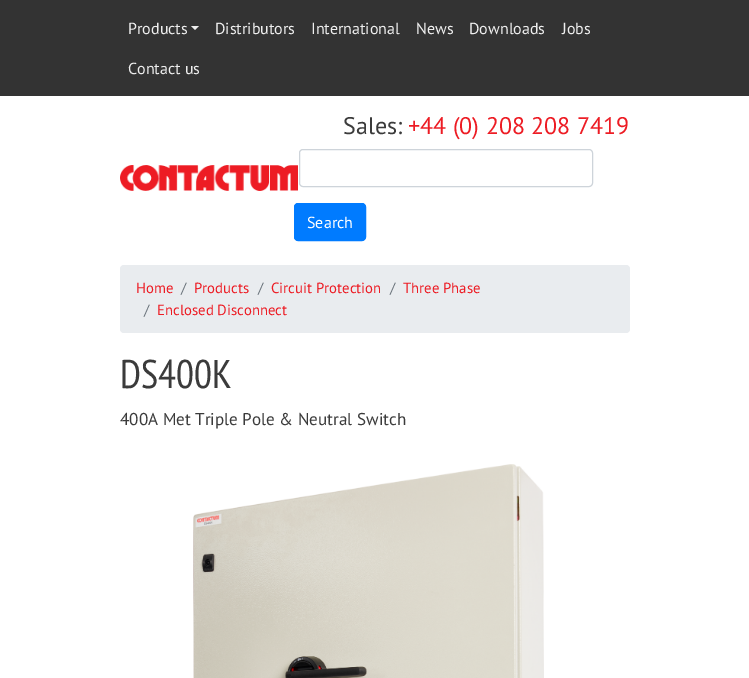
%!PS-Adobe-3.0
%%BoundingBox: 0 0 749 678
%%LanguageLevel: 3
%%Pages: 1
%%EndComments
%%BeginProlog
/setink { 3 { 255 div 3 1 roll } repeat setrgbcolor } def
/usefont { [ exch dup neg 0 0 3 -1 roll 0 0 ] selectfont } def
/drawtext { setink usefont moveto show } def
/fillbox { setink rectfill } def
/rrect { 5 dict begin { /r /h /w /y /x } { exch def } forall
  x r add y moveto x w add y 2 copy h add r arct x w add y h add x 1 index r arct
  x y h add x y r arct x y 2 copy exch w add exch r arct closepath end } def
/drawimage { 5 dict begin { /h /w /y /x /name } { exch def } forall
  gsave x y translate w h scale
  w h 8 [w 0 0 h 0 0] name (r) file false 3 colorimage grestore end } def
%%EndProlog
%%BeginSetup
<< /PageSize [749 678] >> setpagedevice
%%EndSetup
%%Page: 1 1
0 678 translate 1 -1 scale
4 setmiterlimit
0 0 749 678 255 255 255 fillbox
0 0 749 96 51 51 51 fillbox
(Products) 128 34 /PTSans-Regular 16 238 238 238 drawtext
191 26 moveto 199 26 lineto 195 30 lineto closepath fill
(Distributors) 215 34 /PTSans-Regular 16 238 238 238 drawtext
(International) 311 34 /PTSans-Regular 16 238 238 238 drawtext
(News) 416 34 /PTSans-Regular 16 238 238 238 drawtext
(Downloads) 469 34 /PTSans-Regular 16 238 238 238 drawtext
(Jobs) 562 34 /PTSans-Regular 16 238 238 238 drawtext
(Contact us) 128 74 /PTSans-Regular 16 238 238 238 drawtext
(assets/img1.rgb) 120 165 178 26 drawimage
(Sales:) 343 134 /PTSans-Regular 24 59 59 59 drawtext
(+44 \(0\) 208 208 7419) 408 134 /PTSans-Regular 24 237 28 36 drawtext
206 212 218 setink
299.5 149.5 293 37 3.5 rrect stroke
0 123 255 setink
294.5 203.5 71 37 3.5 rrect gsave fill grestore
stroke
(Search) 307 228 /PTSans-Regular 16 255 255 255 drawtext
233 236 239 setink
120 265 510 68 4 rrect fill
(Home) 136 293 /PTSans-Regular 14.75 237 28 36 drawtext
(/) 181 293 /PTSans-Regular 14.75 108 117 125 drawtext
(Products) 194 293 /PTSans-Regular 14.75 237 28 36 drawtext
(/) 258 293 /PTSans-Regular 14.75 108 117 125 drawtext
(Circuit Protection) 271 293 /PTSans-Regular 14.75 237 28 36 drawtext
(/) 390 293 /PTSans-Regular 14.75 108 117 125 drawtext
(Three Phase) 403 293 /PTSans-Regular 14.75 237 28 36 drawtext
(/) 144 315 /PTSans-Regular 14.75 108 117 125 drawtext
(Enclosed Disconnect) 157 315 /PTSans-Regular 14.75 237 28 36 drawtext
(DS400K) 120 388 /PTSansNarrow-Regular 40 59 59 59 drawtext
(400A Met Triple Pole & Neutral Switch) 120 425 /PTSans-Regular 17.1 59 59 59 drawtext
(assets/img2.rgb) 193 464 351 214 drawimage
showpage
%%EOF
